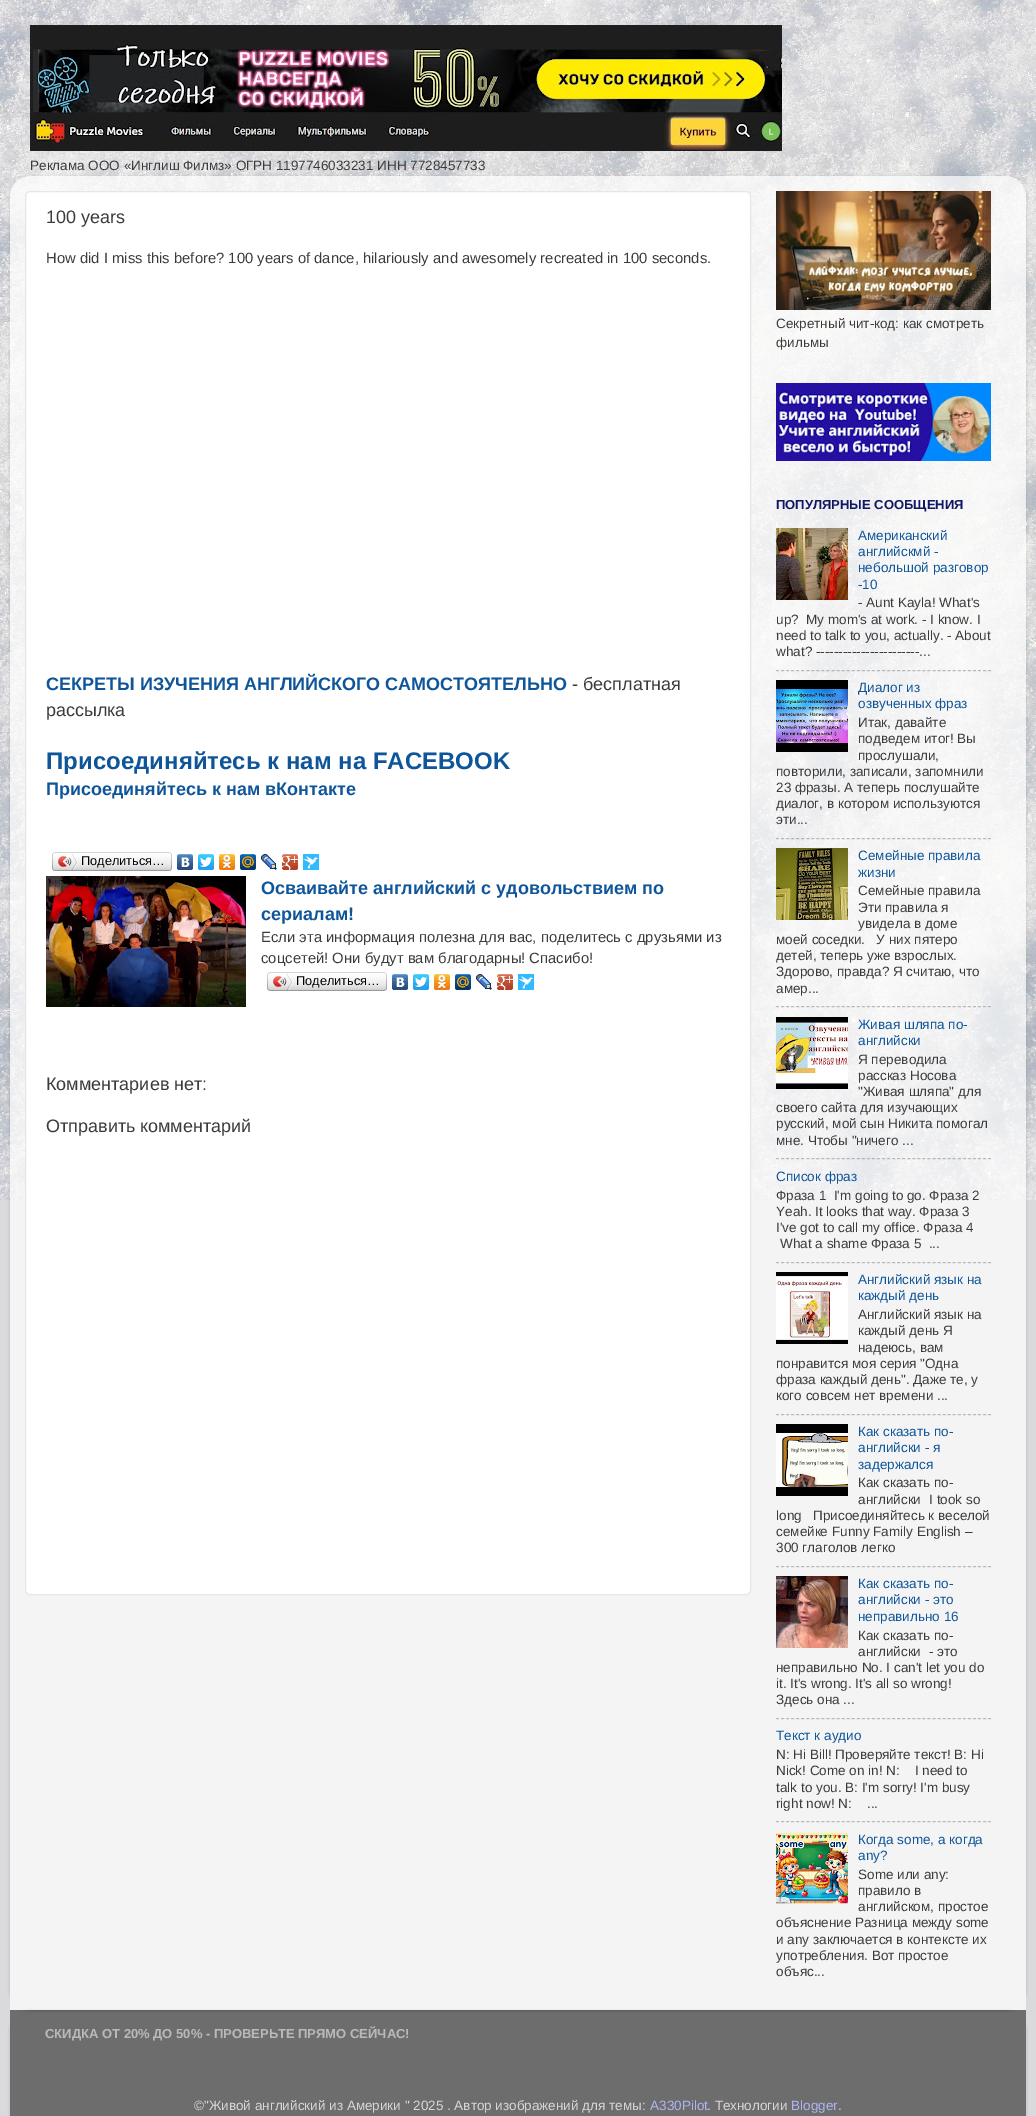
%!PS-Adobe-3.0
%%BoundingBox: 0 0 1036 2116
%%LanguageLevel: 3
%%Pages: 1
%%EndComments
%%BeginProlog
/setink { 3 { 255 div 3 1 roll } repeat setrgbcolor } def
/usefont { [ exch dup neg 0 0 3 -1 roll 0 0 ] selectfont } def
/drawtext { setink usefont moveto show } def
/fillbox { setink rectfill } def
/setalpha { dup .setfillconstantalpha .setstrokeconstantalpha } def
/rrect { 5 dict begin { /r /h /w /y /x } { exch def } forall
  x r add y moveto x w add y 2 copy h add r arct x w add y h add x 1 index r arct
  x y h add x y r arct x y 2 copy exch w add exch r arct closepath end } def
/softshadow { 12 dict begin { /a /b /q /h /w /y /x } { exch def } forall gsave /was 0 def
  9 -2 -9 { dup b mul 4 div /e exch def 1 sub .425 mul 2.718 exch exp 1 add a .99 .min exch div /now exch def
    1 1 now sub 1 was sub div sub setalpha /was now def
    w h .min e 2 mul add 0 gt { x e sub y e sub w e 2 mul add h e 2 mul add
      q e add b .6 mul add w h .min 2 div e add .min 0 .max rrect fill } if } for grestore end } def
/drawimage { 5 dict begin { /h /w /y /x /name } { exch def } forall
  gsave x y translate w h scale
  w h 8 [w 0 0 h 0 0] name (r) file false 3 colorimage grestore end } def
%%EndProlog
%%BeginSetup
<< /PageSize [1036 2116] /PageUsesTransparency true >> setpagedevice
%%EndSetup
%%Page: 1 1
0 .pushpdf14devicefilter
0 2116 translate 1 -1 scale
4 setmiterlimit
0 0 1036 2116 218 218 220 fillbox
(assets/img1.rgb) 0 0 1036 1200 drawimage
(assets/img2.rgb) 30 25 752 126 drawimage
(Реклама ООО «Инглиш Филмз» ОГРН 1197746033231 ИНН 7728457733) 30 170 /LiberationSans-Regular 13.5 59 59 59 drawtext
gsave
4 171 moveto 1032 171 lineto 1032 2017 lineto 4 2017 lineto closepath 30 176 moveto 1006 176 lineto 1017 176 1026 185 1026 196 curveto 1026 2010 lineto 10 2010 lineto 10 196 lineto 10 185 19 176 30 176 curveto closepath eoclip newpath
0 0 0 setink
10 177 1016 1834 20 1.5 0.15 softshadow
grestore
(assets/img3.rgb) 10 176 1016 1834 drawimage
255 255 255 setink
25.5 191.5 725 1403 4.5 rrect gsave fill grestore
230 230 230 setink
stroke
(100 years) 46 223 /LiberationSans-Regular 18 59 59 59 drawtext
(How did I miss this before? 100 years of dance, hilariously and awesomely recreated in 100 seconds.) 46 263 /LiberationSans-Regular 14.85 59 59 59 drawtext
(СЕКРЕТЫ ИЗУЧЕНИЯ АНГЛИЙСКОГО САМОСТОЯТЕЛЬНО) 46 690 /LiberationSans-Bold 18 15 85 153 drawtext
(- бесплатная) 572 690 /LiberationSans-Regular 18 59 59 59 drawtext
(рассылка) 46 716 /LiberationSans-Regular 18 59 59 59 drawtext
(Присоединяйтесь к нам на FACEBOOK) 46 769 /LiberationSans-Bold 24 15 85 153 drawtext
(Присоединяйтесь к нам вКонтакте) 46 795 /LiberationSans-Bold 18 15 85 153 drawtext
(assets/img4.rgb) 55 852 114 19 drawimage
(assets/img5.rgb) 52 852 3 19 drawimage
(assets/img6.rgb) 58 853 20 17 drawimage
(Поделиться…) 81 865 /LiberationSans-Regular 12.75 0 0 0 drawtext
(assets/img7.rgb) 169 852 3 19 drawimage
(assets/img8.rgb) 177 854 16 16 drawimage
(assets/img9.rgb) 198 854 16 16 drawimage
(assets/img10.rgb) 219 854 16 16 drawimage
(assets/img11.rgb) 240 854 16 16 drawimage
(assets/img12.rgb) 261 854 16 16 drawimage
(assets/img13.rgb) 282 854 16 16 drawimage
(assets/img14.rgb) 303 854 16 16 drawimage
(assets/img15.rgb) 46 876 200 131 drawimage
(Осваивайте английский с удовольствием по) 261 894 /LiberationSans-Bold 18 15 85 153 drawtext
(сериалам!) 261 920 /LiberationSans-Bold 18 15 85 153 drawtext
(Если эта информация полезна для вас, поделитесь с друзьями из) 261 942 /LiberationSans-Regular 14.85 59 59 59 drawtext
(соцсетей! Они будут вам благодарны! Спасибо!) 261 963 /LiberationSans-Regular 14.85 59 59 59 drawtext
(assets/img4.rgb) 270 972 114 19 drawimage
(assets/img5.rgb) 267 972 3 19 drawimage
(assets/img6.rgb) 273 973 20 17 drawimage
(Поделиться…) 296 985 /LiberationSans-Regular 12.75 0 0 0 drawtext
(assets/img7.rgb) 384 972 3 19 drawimage
(assets/img8.rgb) 392 974 16 16 drawimage
(assets/img9.rgb) 413 974 16 16 drawimage
(assets/img10.rgb) 434 974 16 16 drawimage
(assets/img11.rgb) 455 974 16 16 drawimage
(assets/img12.rgb) 476 974 16 16 drawimage
(assets/img13.rgb) 497 974 16 16 drawimage
(assets/img14.rgb) 518 974 16 16 drawimage
(Комментариев нет:) 46 1090 /LiberationSans-Regular 18 59 59 59 drawtext
(Отправить комментарий) 46 1132 /LiberationSans-Regular 18 59 59 59 drawtext
(assets/img16.rgb) 776 191 215 119 drawimage
(Секретный чит-код: как смотреть) 776 328 /LiberationSans-Regular 13.5 59 59 59 drawtext
(фильмы) 776 347 /LiberationSans-Regular 13.5 59 59 59 drawtext
(assets/img17.rgb) 776 383 215 78 drawimage
(ПОПУЛЯРНЫЕ СООБЩЕНИЯ) 776 509 /LiberationSans-Bold 13 17 24 99 drawtext
(assets/img18.rgb) 776 528 72 72 drawimage
(Американский) 858 540 /LiberationSans-Regular 13.5 15 85 153 drawtext
(английскмй -) 858 556 /LiberationSans-Regular 13.5 15 85 153 drawtext
(небольшой разговор) 858 572 /LiberationSans-Regular 13.5 15 85 153 drawtext
(-10) 858 589 /LiberationSans-Regular 13.5 15 85 153 drawtext
(- Aunt Kayla! What's) 858 607 /LiberationSans-Regular 13.5 59 59 59 drawtext
(up?  My mom's at work. - I know. I) 776 624 /LiberationSans-Regular 13.5 59 59 59 drawtext
(need to talk to you, actually. - About) 776 640 /LiberationSans-Regular 13.5 59 59 59 drawtext
(what? -----------------------...) 776 656 /LiberationSans-Regular 13.5 59 59 59 drawtext
0.5 setalpha
128 128 128 setink
[3 2.05] 0 setdash
776 670.5 moveto 991 670.5 lineto stroke
1 setalpha
(assets/img19.rgb) 776 680 72 72 drawimage
(Диалог из) 858 692 /LiberationSans-Regular 13.5 15 85 153 drawtext
(озвученных фраз) 858 708 /LiberationSans-Regular 13.5 15 85 153 drawtext
(Итак, давайте) 858 727 /LiberationSans-Regular 13.5 59 59 59 drawtext
(подведем итог! Вы) 858 743 /LiberationSans-Regular 13.5 59 59 59 drawtext
(прослушали,) 858 760 /LiberationSans-Regular 13.5 59 59 59 drawtext
(повторили, записали, запомнили) 776 776 /LiberationSans-Regular 13.5 59 59 59 drawtext
(23 фразы. А теперь послушайте) 776 792 /LiberationSans-Regular 13.5 59 59 59 drawtext
(диалог, в котором используются) 776 808 /LiberationSans-Regular 13.5 59 59 59 drawtext
(эти...) 776 824 /LiberationSans-Regular 13.5 59 59 59 drawtext
0.5 setalpha
128 128 128 setink
776 838.5 moveto 991 838.5 lineto stroke
1 setalpha
(assets/img20.rgb) 776 848 72 72 drawimage
(Семейные правила) 858 860 /LiberationSans-Regular 13.5 15 85 153 drawtext
(жизни) 858 877 /LiberationSans-Regular 13.5 15 85 153 drawtext
(Семейные правила) 858 895 /LiberationSans-Regular 13.5 59 59 59 drawtext
(Эти правила я) 858 912 /LiberationSans-Regular 13.5 59 59 59 drawtext
(увидела в доме) 858 928 /LiberationSans-Regular 13.5 59 59 59 drawtext
(моей соседки.   У них пятеро) 776 944 /LiberationSans-Regular 13.5 59 59 59 drawtext
(детей, теперь уже взрослых.) 776 960 /LiberationSans-Regular 13.5 59 59 59 drawtext
(Здорово, правда? Я считаю, что) 776 976 /LiberationSans-Regular 13.5 59 59 59 drawtext
(амер...) 776 993 /LiberationSans-Regular 13.5 59 59 59 drawtext
0.5 setalpha
128 128 128 setink
776 1006.5 moveto 991 1006.5 lineto stroke
1 setalpha
(assets/img21.rgb) 776 1017 72 72 drawimage
(Живая шляпа по-) 858 1029 /LiberationSans-Regular 13.5 15 85 153 drawtext
(английски) 858 1045 /LiberationSans-Regular 13.5 15 85 153 drawtext
(Я переводила) 858 1064 /LiberationSans-Regular 13.5 59 59 59 drawtext
(рассказ Носова) 858 1080 /LiberationSans-Regular 13.5 59 59 59 drawtext
("Живая шляпа" для) 858 1096 /LiberationSans-Regular 13.5 59 59 59 drawtext
(своего сайта для изучающих) 776 1112 /LiberationSans-Regular 13.5 59 59 59 drawtext
(русский, мой сын Никита помогал) 776 1128 /LiberationSans-Regular 13.5 59 59 59 drawtext
(мне. Чтобы "ничего ...) 776 1145 /LiberationSans-Regular 13.5 59 59 59 drawtext
0.5 setalpha
128 128 128 setink
776 1158.5 moveto 991 1158.5 lineto stroke
1 setalpha
(Список фраз) 776 1181 /LiberationSans-Regular 13.5 15 85 153 drawtext
(Фраза 1  I'm going to go. Фраза 2) 776 1200 /LiberationSans-Regular 13.5 59 59 59 drawtext
(Yeah. It looks that way. Фраза 3) 776 1216 /LiberationSans-Regular 13.5 59 59 59 drawtext
(I've got to call my office. Фраза 4) 776 1232 /LiberationSans-Regular 13.5 59 59 59 drawtext
(What a shame Фраза 5  ...) 780 1248 /LiberationSans-Regular 13.5 59 59 59 drawtext
186 186 186 setink
776 1262.5 moveto 991 1262.5 lineto stroke
(assets/img22.rgb) 776 1272 72 72 drawimage
(Английский язык на) 858 1284 /LiberationSans-Regular 13.5 15 85 153 drawtext
(каждый день) 858 1300 /LiberationSans-Regular 13.5 15 85 153 drawtext
(Английский язык на) 858 1319 /LiberationSans-Regular 13.5 59 59 59 drawtext
(каждый день Я) 858 1335 /LiberationSans-Regular 13.5 59 59 59 drawtext
(надеюсь, вам) 858 1352 /LiberationSans-Regular 13.5 59 59 59 drawtext
(понравится моя серия "Одна) 776 1368 /LiberationSans-Regular 13.5 59 59 59 drawtext
(фраза каждый день". Даже те, у) 776 1384 /LiberationSans-Regular 13.5 59 59 59 drawtext
(кого совсем нет времени ...) 776 1400 /LiberationSans-Regular 13.5 59 59 59 drawtext
186 186 186 setink
776 1414.5 moveto 991 1414.5 lineto stroke
(assets/img23.rgb) 776 1424 72 72 drawimage
(Как сказать по-) 858 1436 /LiberationSans-Regular 13.5 15 85 153 drawtext
(английски - я) 858 1452 /LiberationSans-Regular 13.5 15 85 153 drawtext
(задержался) 858 1469 /LiberationSans-Regular 13.5 15 85 153 drawtext
(Как сказать по-) 858 1487 /LiberationSans-Regular 13.5 59 59 59 drawtext
(английски) 858 1504 /LiberationSans-Regular 13.5 59 59 59 drawtext
(I took so) 929 1504 /LiberationSans-Regular 13.5 59 59 59 drawtext
(long) 776 1520 /LiberationSans-Regular 13.5 59 59 59 drawtext
(Присоединяйтесь к веселой) 813 1520 /LiberationSans-Regular 13.5 59 59 59 drawtext
(семейке Funny Family English –) 776 1536 /LiberationSans-Regular 13.5 59 59 59 drawtext
(300 глаголов легко) 776 1552 /LiberationSans-Regular 13.5 59 59 59 drawtext
186 186 186 setink
776 1566.5 moveto 991 1566.5 lineto stroke
(assets/img24.rgb) 776 1576 72 72 drawimage
(Как сказать по-) 858 1588 /LiberationSans-Regular 13.5 15 85 153 drawtext
(английски - это) 858 1604 /LiberationSans-Regular 13.5 15 85 153 drawtext
(неправильно 16) 858 1621 /LiberationSans-Regular 13.5 15 85 153 drawtext
(Как сказать по-) 858 1640 /LiberationSans-Regular 13.5 59 59 59 drawtext
(английски  - это) 858 1656 /LiberationSans-Regular 13.5 59 59 59 drawtext
(неправильно No. I can't let you do) 776 1672 /LiberationSans-Regular 13.5 59 59 59 drawtext
(it. It's wrong. It's all so wrong!) 776 1688 /LiberationSans-Regular 13.5 59 59 59 drawtext
(Здесь она ...) 776 1704 /LiberationSans-Regular 13.5 59 59 59 drawtext
186 186 186 setink
776 1718.5 moveto 991 1718.5 lineto stroke
(Текст к аудио) 776 1740 /LiberationSans-Regular 13.5 15 85 153 drawtext
(N: Hi Bill! Проверяйте текст! B: Hi) 776 1759 /LiberationSans-Regular 13.5 59 59 59 drawtext
(Nick! Come on in! N:    I need to) 776 1775 /LiberationSans-Regular 13.5 59 59 59 drawtext
(talk to you. B: I'm sorry! I'm busy) 776 1792 /LiberationSans-Regular 13.5 59 59 59 drawtext
(right now! N:    ...) 776 1808 /LiberationSans-Regular 13.5 59 59 59 drawtext
186 186 186 setink
776 1821.5 moveto 991 1821.5 lineto stroke
(assets/img25.rgb) 776 1832 72 72 drawimage
(Когда some, а когда) 858 1844 /LiberationSans-Regular 13.5 15 85 153 drawtext
(any?) 858 1860 /LiberationSans-Regular 13.5 15 85 153 drawtext
(Some или any:) 858 1879 /LiberationSans-Regular 13.5 59 59 59 drawtext
(правило в) 858 1895 /LiberationSans-Regular 13.5 59 59 59 drawtext
(английском, простое) 858 1911 /LiberationSans-Regular 13.5 59 59 59 drawtext
(объяснение Разница между some) 776 1927 /LiberationSans-Regular 13.5 59 59 59 drawtext
(и any заключается в контексте их) 776 1944 /LiberationSans-Regular 13.5 59 59 59 drawtext
(употребления. Вот простое) 776 1960 /LiberationSans-Regular 13.5 59 59 59 drawtext
(объяс...) 776 1976 /LiberationSans-Regular 13.5 59 59 59 drawtext
gsave
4 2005 moveto 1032 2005 lineto 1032 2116 lineto 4 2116 lineto closepath 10 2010 moveto 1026 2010 lineto 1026 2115 lineto 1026 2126 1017 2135 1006 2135 curveto 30 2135 lineto 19 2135 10 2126 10 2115 curveto closepath eoclip newpath
0 0 0 setink
10 2011 1016 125 20 1.5 0.15 softshadow
grestore
0.5 setalpha
10 2010 1016 106 0 0 0 fillbox
1 setalpha
(СКИДКА ОТ 20% ДО 50% - ПРОВЕРЬТЕ ПРЯМО СЕЙЧАС!) 45 2038 /LiberationSans-Bold 13 185 185 185 drawtext
(©"Живой английский из Америки " 2025 . Автор изображений для темы:) 194 2110 /LiberationSans-Regular 13.5 215 215 215 drawtext
(A330Pilot) 650 2110 /LiberationSans-Regular 13.5 174 181 241 drawtext
(. Технологии) 707 2110 /LiberationSans-Regular 13.5 215 215 215 drawtext
(Blogger) 791 2110 /LiberationSans-Regular 13.5 174 181 241 drawtext
(.) 838 2110 /LiberationSans-Regular 13.5 215 215 215 drawtext
.poppdf14devicefilter showpage
%%EOF
